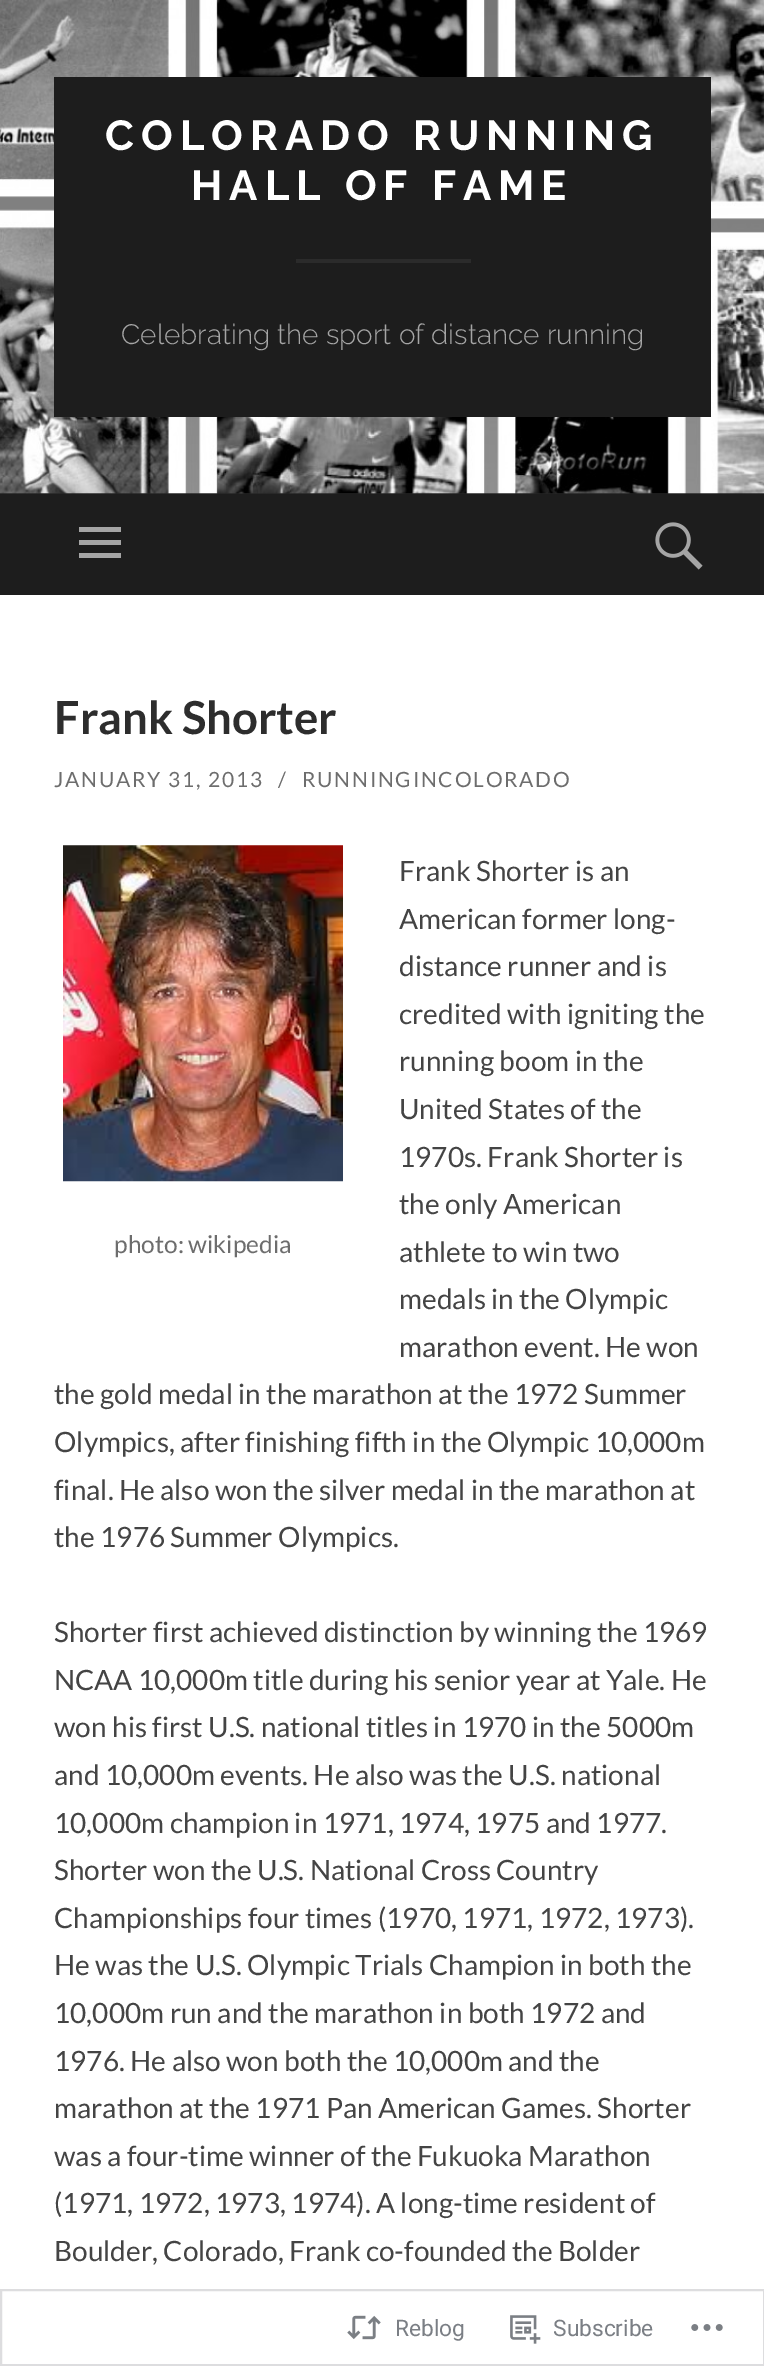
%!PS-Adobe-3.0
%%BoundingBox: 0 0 764 2366
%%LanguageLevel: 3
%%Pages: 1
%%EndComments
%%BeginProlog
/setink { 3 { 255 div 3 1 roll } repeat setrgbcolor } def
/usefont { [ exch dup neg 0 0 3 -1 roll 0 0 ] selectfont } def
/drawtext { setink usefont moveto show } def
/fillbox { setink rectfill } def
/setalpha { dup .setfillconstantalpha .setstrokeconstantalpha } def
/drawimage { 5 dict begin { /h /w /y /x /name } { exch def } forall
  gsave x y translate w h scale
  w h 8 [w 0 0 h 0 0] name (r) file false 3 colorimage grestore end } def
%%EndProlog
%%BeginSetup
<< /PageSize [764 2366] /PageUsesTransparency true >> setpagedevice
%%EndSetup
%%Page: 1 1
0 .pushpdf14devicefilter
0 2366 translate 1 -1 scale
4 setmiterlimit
0 0 764 2366 255 255 255 fillbox
0 493 764 1 38 38 38 fillbox
(assets/img1.rgb) 0 0 764 494 drawimage
54 77 657 340 29 29 29 fillbox
/Raleway-Bold 42 usefont
255 255 255 setink
105 150 moveto 7 0 (COLORADO RUNNING) ashow
191 200 moveto 7 0 (HALL OF FAME) ashow
296 259 175 4 43 43 43 fillbox
(Celebrating the sport of distance running) 121 344 /Raleway-Light 28 165 165 165 drawtext
0 494 764 101 29 29 29 fillbox
165 165 165 setink
79 558 moveto 79 553 lineto 121 553 lineto 121 558 lineto closepath 79 527 moveto 121 527 lineto 121 532 lineto 79 532 lineto closepath 79 545 moveto 79 540 lineto 121 540 lineto 121 545 lineto closepath fill
(assets/img2.rgb) 655 522 48 48 drawimage
(Frank Shorter) 54 734 /Lato-Bold 45.5 45 45 45 drawtext
/Lato-Regular 21 usefont
109 109 109 setink
54 787 moveto 1.75 0 (JANUARY 31, 2013) ashow
278 787 moveto 1.75 0 (/) ashow
302 787 moveto 1.75 0 (RUNNINGINCOLORADO) ashow
(Frank Shorter is an) 399 881 /Lato-Regular 28 68 68 68 drawtext
(American former long-) 399 929 /Lato-Regular 28 68 68 68 drawtext
(distance runner and is) 399 976 /Lato-Regular 28 68 68 68 drawtext
(credited with igniting the) 399 1024 /Lato-Regular 28 68 68 68 drawtext
(running boom in the) 399 1071 /Lato-Regular 28 68 68 68 drawtext
(United States of the) 399 1119 /Lato-Regular 28 68 68 68 drawtext
(1970s. Frank Shorter is) 399 1167 /Lato-Regular 28 68 68 68 drawtext
(the only American) 399 1214 /Lato-Regular 28 68 68 68 drawtext
(athlete to win two) 399 1262 /Lato-Regular 28 68 68 68 drawtext
(medals in the Olympic) 399 1309 /Lato-Regular 28 68 68 68 drawtext
(marathon event. He won) 399 1357 /Lato-Regular 28 68 68 68 drawtext
(the gold medal in the marathon at the 1972 Summer) 54 1404 /Lato-Regular 28 68 68 68 drawtext
(Olympics, after finishing fifth in the Olympic 10,000m) 54 1452 /Lato-Regular 28 68 68 68 drawtext
(final. He also won the silver medal in the marathon at) 54 1500 /Lato-Regular 28 68 68 68 drawtext
(the 1976 Summer Olympics.) 54 1547 /Lato-Regular 28 68 68 68 drawtext
(assets/img3.rgb) 63 845 280 337 drawimage
(photo: wikipedia) 114 1253 /Lato-Regular 24.5 109 109 109 drawtext
(Shorter first achieved distinction by winning the 1969) 54 1642 /Lato-Regular 28 68 68 68 drawtext
(NCAA 10,000m title during his senior year at Yale. He) 54 1690 /Lato-Regular 28 68 68 68 drawtext
(won his first U.S. national titles in 1970 in the 5000m) 54 1737 /Lato-Regular 28 68 68 68 drawtext
(and 10,000m events. He also was the U.S. national) 54 1785 /Lato-Regular 28 68 68 68 drawtext
(10,000m champion in 1971, 1974, 1975 and 1977.) 54 1833 /Lato-Regular 28 68 68 68 drawtext
(Shorter won the U.S. National Cross Country) 54 1880 /Lato-Regular 28 68 68 68 drawtext
(Championships four times \(1970, 1971, 1972, 1973\).) 54 1928 /Lato-Regular 28 68 68 68 drawtext
(He was the U.S. Olympic Trials Champion in both the) 54 1975 /Lato-Regular 28 68 68 68 drawtext
(10,000m run and the marathon in both 1972 and) 54 2023 /Lato-Regular 28 68 68 68 drawtext
(1976. He also won both the 10,000m and the) 54 2071 /Lato-Regular 28 68 68 68 drawtext
(marathon at the 1971 Pan American Games. Shorter) 54 2118 /Lato-Regular 28 68 68 68 drawtext
(was a four-time winner of the Fukuoka Marathon) 54 2166 /Lato-Regular 28 68 68 68 drawtext
(\(1971, 1972, 1973, 1974\). A long-time resident of) 54 2213 /Lato-Regular 28 68 68 68 drawtext
(Boulder, Colorado, Frank co-founded the Bolder) 54 2261 /Lato-Regular 28 68 68 68 drawtext
0.98 setalpha
220 220 222 setink
2 setlinewidth
1 2290 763 75 rectstroke
1 setalpha
(assets/img4.rgb) 347 2315 34 25 drawimage
(Reblog) 395 2336 /Roboto-Regular 22.75 123 127 133 drawtext
(assets/img5.rgb) 510 2315 31 29 drawimage
(Subscribe) 553 2336 /Roboto-Regular 22.75 123 127 133 drawtext
(assets/img6.rgb) 691 2324 32 7 drawimage
.poppdf14devicefilter showpage
%%EOF
